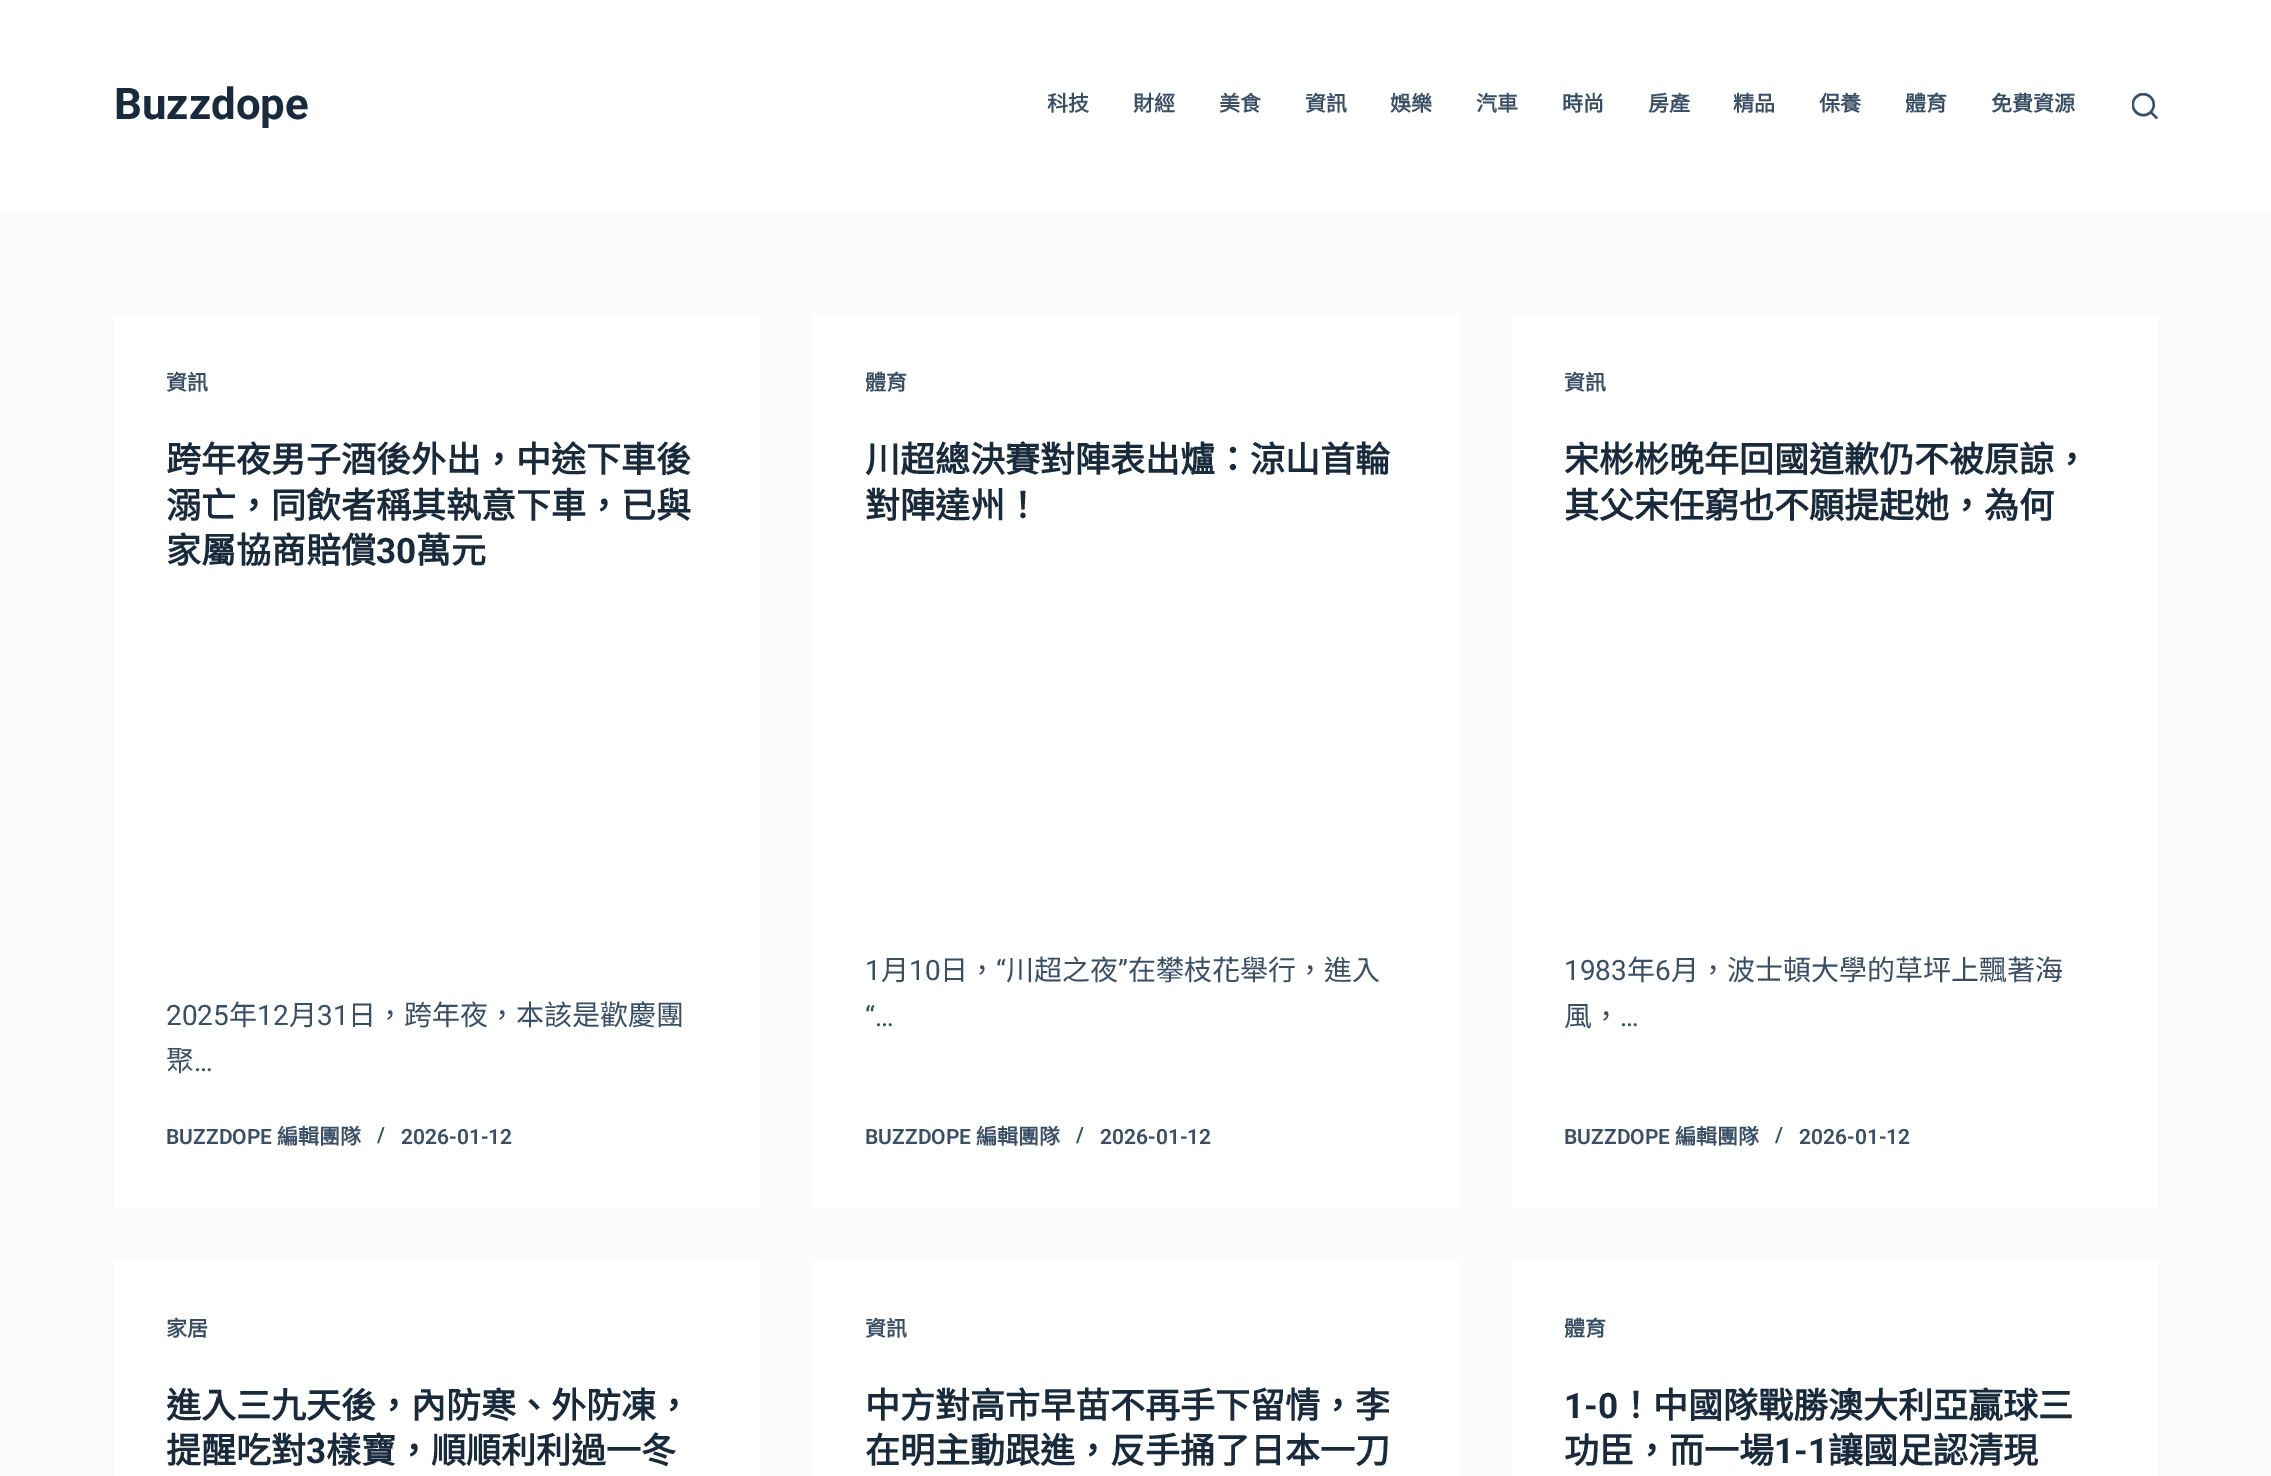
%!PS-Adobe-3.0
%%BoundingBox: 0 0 2271 1476
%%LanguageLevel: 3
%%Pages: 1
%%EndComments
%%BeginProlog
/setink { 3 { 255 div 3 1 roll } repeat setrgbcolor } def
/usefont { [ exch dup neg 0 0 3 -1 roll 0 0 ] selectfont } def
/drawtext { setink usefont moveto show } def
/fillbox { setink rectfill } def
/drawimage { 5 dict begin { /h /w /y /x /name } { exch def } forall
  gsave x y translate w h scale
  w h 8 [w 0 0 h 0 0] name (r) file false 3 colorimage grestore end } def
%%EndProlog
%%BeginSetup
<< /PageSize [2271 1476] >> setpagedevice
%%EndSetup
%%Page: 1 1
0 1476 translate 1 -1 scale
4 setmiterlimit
0 0 2271 1476 250 251 252 fillbox
0 0 2271 210 255 255 255 fillbox
(Buzzdope) 114 119 /Roboto-Bold 43.75 25 42 61 drawtext
(科技) 1047 111 /NotoSansCJKTC-Bold 21 58 79 102 drawtext
(財經) 1133 111 /NotoSansCJKTC-Bold 21 58 79 102 drawtext
(美食) 1219 111 /NotoSansCJKTC-Bold 21 58 79 102 drawtext
(資訊) 1305 111 /NotoSansCJKTC-Bold 21 58 79 102 drawtext
(娛樂) 1390 111 /NotoSansCJKTC-Bold 21 58 79 102 drawtext
(汽車) 1476 111 /NotoSansCJKTC-Bold 21 58 79 102 drawtext
(時尚) 1562 111 /NotoSansCJKTC-Bold 21 58 79 102 drawtext
(房產) 1648 111 /NotoSansCJKTC-Bold 21 58 79 102 drawtext
(精品) 1733 111 /NotoSansCJKTC-Bold 21 58 79 102 drawtext
(保養) 1819 111 /NotoSansCJKTC-Bold 21 58 79 102 drawtext
(體育) 1905 111 /NotoSansCJKTC-Bold 21 58 79 102 drawtext
(免費資源) 1991 111 /NotoSansCJKTC-Bold 21 58 79 102 drawtext
(assets/img1.rgb) 2132 93 26 26 drawimage
114 315 646 893 255 255 255 fillbox
(資訊) 166 390 /NotoSansCJKTC-Bold 21 58 79 102 drawtext
(跨年夜男子酒後外出，中途下車後) 166 472 /NotoSansCJKTC-Bold 35 25 42 61 drawtext
(溺亡，同飲者稱其執意下車，已與) 166 518 /NotoSansCJKTC-Bold 35 25 42 61 drawtext
(家屬協商賠償) 166 563 /NotoSansCJKTC-Bold 35 25 42 61 drawtext
(30) 376 563 /Roboto-Bold 35 25 42 61 drawtext
(萬元) 416 563 /NotoSansCJKTC-Bold 35 25 42 61 drawtext
(2025) 166 1025 /Roboto-Regular 28 58 79 102 drawtext
(年) 229 1025 /NotoSansCJKTC-Regular 28 58 79 102 drawtext
(12) 257 1025 /Roboto-Regular 28 58 79 102 drawtext
(月) 289 1025 /NotoSansCJKTC-Regular 28 58 79 102 drawtext
(31) 317 1025 /Roboto-Regular 28 58 79 102 drawtext
(日，跨年夜，本該是歡慶團) 348 1025 /NotoSansCJKTC-Regular 28 58 79 102 drawtext
(聚) 166 1071 /NotoSansCJKTC-Regular 28 58 79 102 drawtext
(…) 194 1071 /Roboto-Regular 28 58 79 102 drawtext
(BUZZDOPE) 166 1144 /Roboto-SemiBold 21 58 79 102 drawtext
(編輯團隊) 277 1144 /NotoSansCJKTC-Bold 21 58 79 102 drawtext
(/) 377 1142 /Roboto-SemiBold 21 58 79 102 drawtext
(2026-01-12) 401 1144 /Roboto-SemiBold 21 58 79 102 drawtext
812 315 648 893 255 255 255 fillbox
(體育) 865 390 /NotoSansCJKTC-Bold 21 58 79 102 drawtext
(川超總決賽對陣表出爐：涼山首輪) 865 472 /NotoSansCJKTC-Bold 35 25 42 61 drawtext
(對陣達州！) 865 518 /NotoSansCJKTC-Bold 35 25 42 61 drawtext
(1) 865 980 /Roboto-Regular 28 58 79 102 drawtext
(月) 881 980 /NotoSansCJKTC-Regular 28 58 79 102 drawtext
(10) 909 980 /Roboto-Regular 28 58 79 102 drawtext
(日，) 940 980 /NotoSansCJKTC-Regular 28 58 79 102 drawtext
(“) 996 980 /Roboto-Regular 28 58 79 102 drawtext
(川超之夜) 1006 980 /NotoSansCJKTC-Regular 28 58 79 102 drawtext
(”) 1118 980 /Roboto-Regular 28 58 79 102 drawtext
(在攀枝花舉行，進入) 1128 980 /NotoSansCJKTC-Regular 28 58 79 102 drawtext
(“…) 865 1026 /Roboto-Regular 28 58 79 102 drawtext
(BUZZDOPE) 865 1144 /Roboto-SemiBold 21 58 79 102 drawtext
(編輯團隊) 976 1144 /NotoSansCJKTC-Bold 21 58 79 102 drawtext
(/) 1076 1142 /Roboto-SemiBold 21 58 79 102 drawtext
(2026-01-12) 1100 1144 /Roboto-SemiBold 21 58 79 102 drawtext
1512 315 646 893 255 255 255 fillbox
(資訊) 1564 390 /NotoSansCJKTC-Bold 21 58 79 102 drawtext
(宋彬彬晚年回國道歉仍不被原諒，) 1564 472 /NotoSansCJKTC-Bold 35 25 42 61 drawtext
(其父宋任窮也不願提起她，為何) 1564 518 /NotoSansCJKTC-Bold 35 25 42 61 drawtext
(1983) 1564 980 /Roboto-Regular 28 58 79 102 drawtext
(年) 1627 980 /NotoSansCJKTC-Regular 28 58 79 102 drawtext
(6) 1655 980 /Roboto-Regular 28 58 79 102 drawtext
(月，波士頓大學的草坪上飄著海) 1671 980 /NotoSansCJKTC-Regular 28 58 79 102 drawtext
(風，) 1564 1026 /NotoSansCJKTC-Regular 28 58 79 102 drawtext
(…) 1620 1026 /Roboto-Regular 28 58 79 102 drawtext
(BUZZDOPE) 1564 1144 /Roboto-SemiBold 21 58 79 102 drawtext
(編輯團隊) 1675 1144 /NotoSansCJKTC-Bold 21 58 79 102 drawtext
(/) 1775 1142 /Roboto-SemiBold 21 58 79 102 drawtext
(2026-01-12) 1799 1144 /Roboto-SemiBold 21 58 79 102 drawtext
114 1260 646 216 255 255 255 fillbox
(家居) 166 1336 /NotoSansCJKTC-Bold 21 58 79 102 drawtext
(進入三九天後，內防寒、外防凍，) 166 1418 /NotoSansCJKTC-Bold 35 25 42 61 drawtext
(提醒吃對) 166 1463 /NotoSansCJKTC-Bold 35 25 42 61 drawtext
(3) 306 1463 /Roboto-Bold 35 25 42 61 drawtext
(樣寶，順順利利過一冬) 326 1463 /NotoSansCJKTC-Bold 35 25 42 61 drawtext
812 1260 648 216 255 255 255 fillbox
(資訊) 865 1336 /NotoSansCJKTC-Bold 21 58 79 102 drawtext
(中方對高市早苗不再手下留情，李) 865 1418 /NotoSansCJKTC-Bold 35 25 42 61 drawtext
(在明主動跟進，反手捅了日本一刀) 865 1463 /NotoSansCJKTC-Bold 35 25 42 61 drawtext
1512 1260 646 216 255 255 255 fillbox
(體育) 1564 1336 /NotoSansCJKTC-Bold 21 58 79 102 drawtext
(1-0) 1564 1418 /Roboto-Bold 35 25 42 61 drawtext
(！中國隊戰勝澳大利亞贏球三) 1618 1418 /NotoSansCJKTC-Bold 35 25 42 61 drawtext
(功臣，而一場) 1564 1463 /NotoSansCJKTC-Bold 35 25 42 61 drawtext
(1-1) 1774 1463 /Roboto-Bold 35 25 42 61 drawtext
(讓國足認清現) 1828 1463 /NotoSansCJKTC-Bold 35 25 42 61 drawtext
showpage
%%EOF
